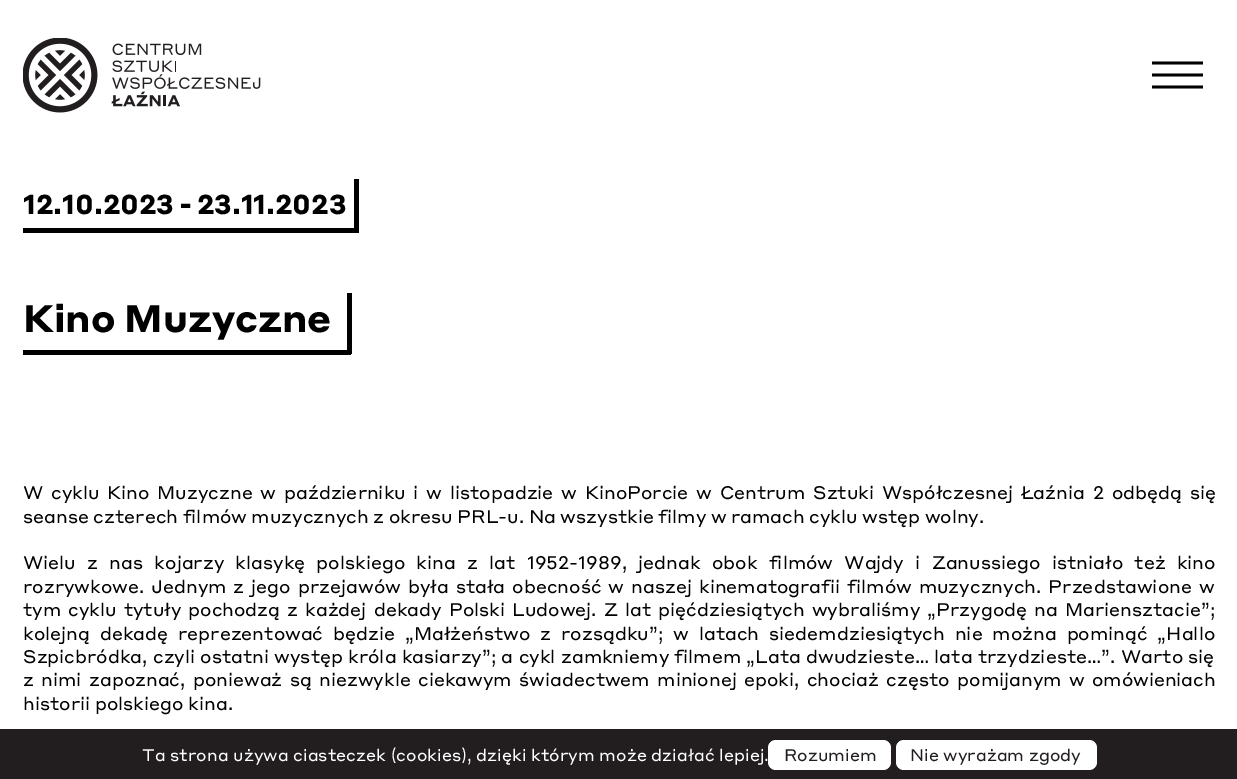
%!PS-Adobe-3.0
%%BoundingBox: 0 0 1237 779
%%LanguageLevel: 3
%%Pages: 1
%%EndComments
%%BeginProlog
/setink { 3 { 255 div 3 1 roll } repeat setrgbcolor } def
/usefont { [ exch dup neg 0 0 3 -1 roll 0 0 ] selectfont } def
/drawtext { setink usefont moveto show } def
/fillbox { setink rectfill } def
/rrect { 5 dict begin { /r /h /w /y /x } { exch def } forall
  x r add y moveto x w add y 2 copy h add r arct x w add y h add x 1 index r arct
  x y h add x y r arct x y 2 copy exch w add exch r arct closepath end } def
/drawimage { 5 dict begin { /h /w /y /x /name } { exch def } forall
  gsave x y translate w h scale
  w h 8 [w 0 0 h 0 0] name (r) file false 3 colorimage grestore end } def
%%EndProlog
%%BeginSetup
<< /PageSize [1237 779] >> setpagedevice
%%EndSetup
%%Page: 1 1
0 779 translate 1 -1 scale
4 setmiterlimit
0 0 1237 779 255 255 255 fillbox
(assets/img1.rgb) 23 38 238 75 drawimage
1 1 1 setink
2.8 setlinewidth
1152 63 moveto 1203 63 lineto 1152 75 moveto 1203 75 lineto 1152 87 moveto 1203 87 lineto stroke
354 179 5 54 0 0 0 fillbox
23 228 336 5 0 0 0 fillbox
/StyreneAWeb-Bold 27 usefont
23 214 moveto -2 0 32 (12.10.2023 - 23.11.2023) widthshow
347 293 5 61 0 0 0 fillbox
23 350 328 5 0 0 0 fillbox
/StyreneAWeb-Bold 37.75 usefont
23 332 moveto -1 0 32 (Kino Muzyczne) widthshow
/StyreneAWeb-Regular 18 usefont
23 499 moveto 3 0 32 (W cyklu Kino Muzyczne w październiku i w listopadzie w KinoPorcie w Centrum Sztuki Współczesnej Łaźnia 2 odbędą się) widthshow
23 523 moveto -0.25 0 32 (seanse czterech filmów muzycznych z okresu PRL-u. Na wszystkie filmy w ramach cyklu wstęp wolny.) widthshow
23 569 moveto 6.5 0 32 (Wielu z nas kojarzy klasykę polskiego kina z lat 1952-1989, jednak obok filmów Wajdy i Zanussiego istniało też kino) widthshow
23 593 moveto 2.25 0 32 (rozrywkowe. Jednym z jego przejawów była stała obecność w naszej kinematografii filmów muzycznych. Przedstawione w) widthshow
23 616 moveto 2.25 0 32 (tym cyklu tytuły pochodzą z każdej dekady Polski Ludowej. Z lat pięćdziesiątych wybraliśmy „Przygodę na Mariensztacie”;) widthshow
23 640 moveto 5.1 0 32 (kolejną dekadę reprezentować będzie „Małżeństwo z rozsądku”; w latach siedemdziesiątych nie można pominąć „Hallo) widthshow
23 663 moveto 0.5 0 32 (Szpicbródka, czyli ostatni występ króla kasiarzy”; a cykl zamkniemy filmem „Lata dwudzieste… lata trzydzieste…”. Warto się) widthshow
23 686 moveto 2.6 0 32 (z nimi zapoznać, ponieważ są niezwykle ciekawym świadectwem minionej epoki, chociaż często pomijanym w omówieniach) widthshow
(historii polskiego kina.) 23 710 /StyreneAWeb-Regular 18 0 0 0 drawtext
0 729 1237 50 34 30 32 fillbox
/StyreneAWeb-Regular 16.5 usefont
255 255 255 setink
142 761 moveto 0.25 0 32 (Ta strona używa ciasteczek \(cookies\), dzięki którym może działać lepiej.) widthshow
768 740 123 30 8 rrect fill
(Rozumiem) 784 761 /StyreneAWeb-Regular 16.5 34 30 32 drawtext
255 255 255 setink
896 740 201 30 8 rrect fill
(Nie wyrażam zgody) 910 761 /StyreneAWeb-Regular 16.5 34 30 32 drawtext
showpage
%%EOF
